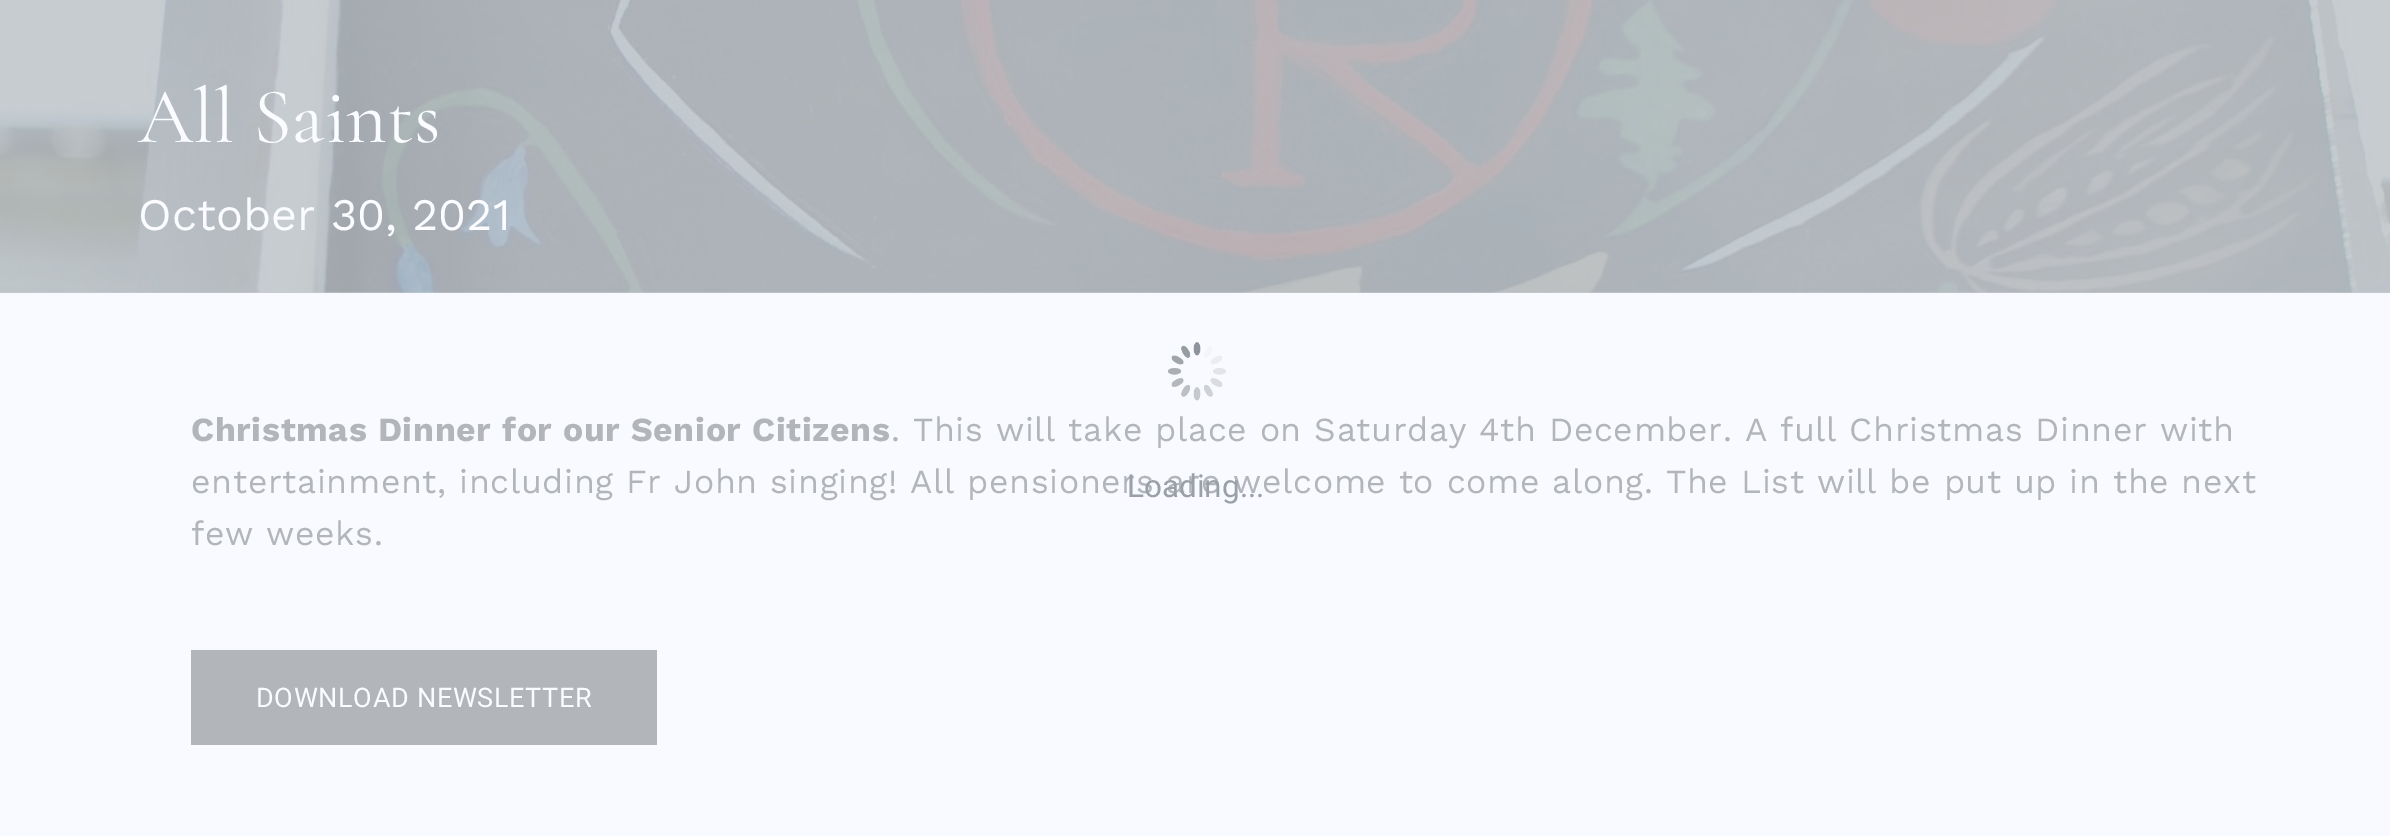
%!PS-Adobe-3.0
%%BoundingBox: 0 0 2390 836
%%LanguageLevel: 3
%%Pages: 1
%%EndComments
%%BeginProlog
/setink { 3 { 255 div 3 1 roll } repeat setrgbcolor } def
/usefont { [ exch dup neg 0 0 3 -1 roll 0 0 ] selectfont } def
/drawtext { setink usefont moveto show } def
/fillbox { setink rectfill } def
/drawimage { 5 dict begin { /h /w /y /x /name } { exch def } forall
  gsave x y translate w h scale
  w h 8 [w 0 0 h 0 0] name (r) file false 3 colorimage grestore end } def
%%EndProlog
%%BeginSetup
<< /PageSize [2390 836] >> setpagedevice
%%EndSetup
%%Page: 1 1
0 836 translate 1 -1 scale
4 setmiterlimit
0 0 2390 836 248 250 255 fillbox
0 292 2390 1 200 205 210 fillbox
(assets/img1.rgb) 0 0 2390 293 drawimage
(All Saints) 138 142 /CormorantGaramond-Regular 79 251 252 255 drawtext
(October 30, 2021) 138 230 /WorkSans-Regular 45 251 252 255 drawtext
/WorkSans-Bold 33.75 usefont
178 182 187 setink
191 441 moveto 0.67 0 (Christmas Dinner for our Senior Citizens) ashow
/WorkSans-Regular 33.75 usefont
891 441 moveto 0.67 0 (. This will take place on Saturday 4th December. A full Christmas Dinner with) ashow
191 493 moveto 0.67 0 (entertainment, including Fr John singing! All pensioners are welcome to come along. The List will be put up in the next) ashow
191 545 moveto 0.67 0 (few weeks.) ashow
191 650 466 95 178 182 187 fillbox
/Roboto-Regular 27 usefont
251 252 255 setink
256 707 moveto 0.67 0 (DOWNLOAD NEWSLETTER) ashow
(assets/img2.rgb) 1168 342 58 59 drawimage
(Loading...) 1127 497 /Roboto-Regular 31.5 154 160 168 drawtext
showpage
%%EOF
